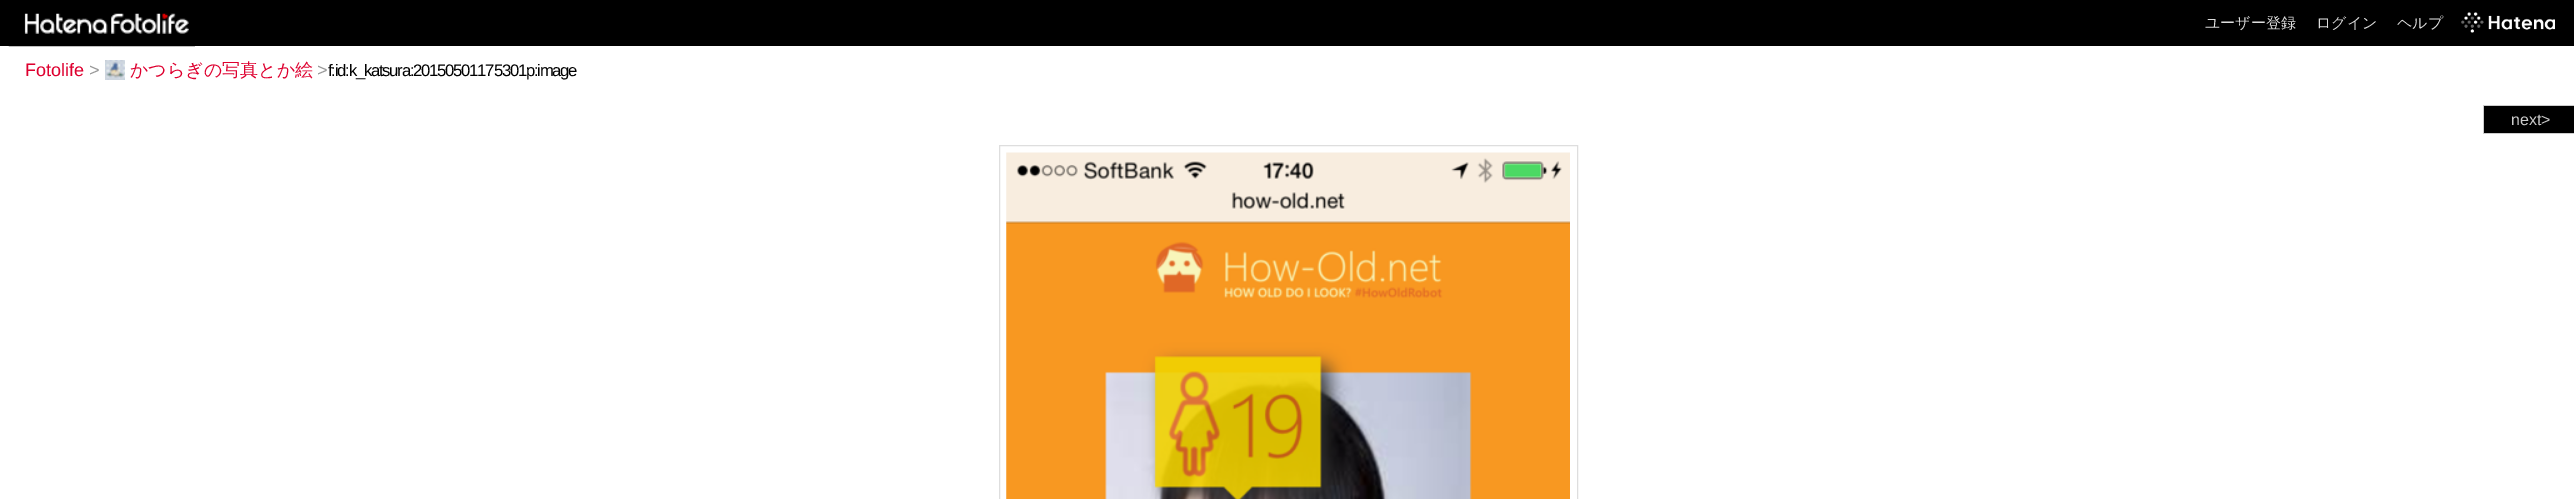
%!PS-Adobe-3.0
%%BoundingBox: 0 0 2574 499
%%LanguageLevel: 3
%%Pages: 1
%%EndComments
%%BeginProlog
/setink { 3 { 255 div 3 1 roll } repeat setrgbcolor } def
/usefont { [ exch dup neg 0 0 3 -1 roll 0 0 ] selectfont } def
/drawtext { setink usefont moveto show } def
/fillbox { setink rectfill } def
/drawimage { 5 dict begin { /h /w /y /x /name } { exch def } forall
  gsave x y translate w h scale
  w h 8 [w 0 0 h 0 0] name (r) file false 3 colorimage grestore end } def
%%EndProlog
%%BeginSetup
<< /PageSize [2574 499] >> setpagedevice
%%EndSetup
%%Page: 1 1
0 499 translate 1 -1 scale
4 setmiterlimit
0 0 2574 499 255 255 255 fillbox
0 0 2574 46 0 0 0 fillbox
(assets/img1.rgb) 8 13 104 34 drawimage
(assets/img2.rgb) 111 13 84 34 drawimage
(ユーザー登録) 2205 28 /WenQuanYiZenHei-Medium 15 221 221 221 drawtext
(ログイン) 2316 28 /WenQuanYiZenHei-Medium 15 221 221 221 drawtext
(ヘルプ) 2397 28 /WenQuanYiZenHei-Medium 15 221 221 221 drawtext
(assets/img3.rgb) 2461 12 94 21 drawimage
(Fotolife) 25 76 /LiberationSans-Regular 18 222 0 47 drawtext
(>) 89 76 /LiberationSans-Regular 18 153 153 153 drawtext
(assets/img4.rgb) 105 60 20 20 drawimage
(かつらぎの写真とか絵) 130 76 /WenQuanYiZenHei-Medium 18 222 0 47 drawtext
(>) 317 76 /LiberationSans-Regular 18 153 153 153 drawtext
/LiberationSans-Regular 16.7 usefont
0 0 0 setink
328 76 moveto -1.25 0 (f:id:k_katsura:20150501175301p:image) ashow
2484 106 90 27 0 0 0 fillbox
2483 105 91 1 204 204 204 fillbox
2483 133 91 1 204 204 204 fillbox
2483 105 1 29 204 204 204 fillbox
(next>) 2511 125 /LiberationSans-Regular 16 204 204 204 drawtext
222 222 222 setink
999.5 145.5 578 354 rectstroke
(assets/img5.rgb) 1006 152 564 347 drawimage
showpage
%%EOF
